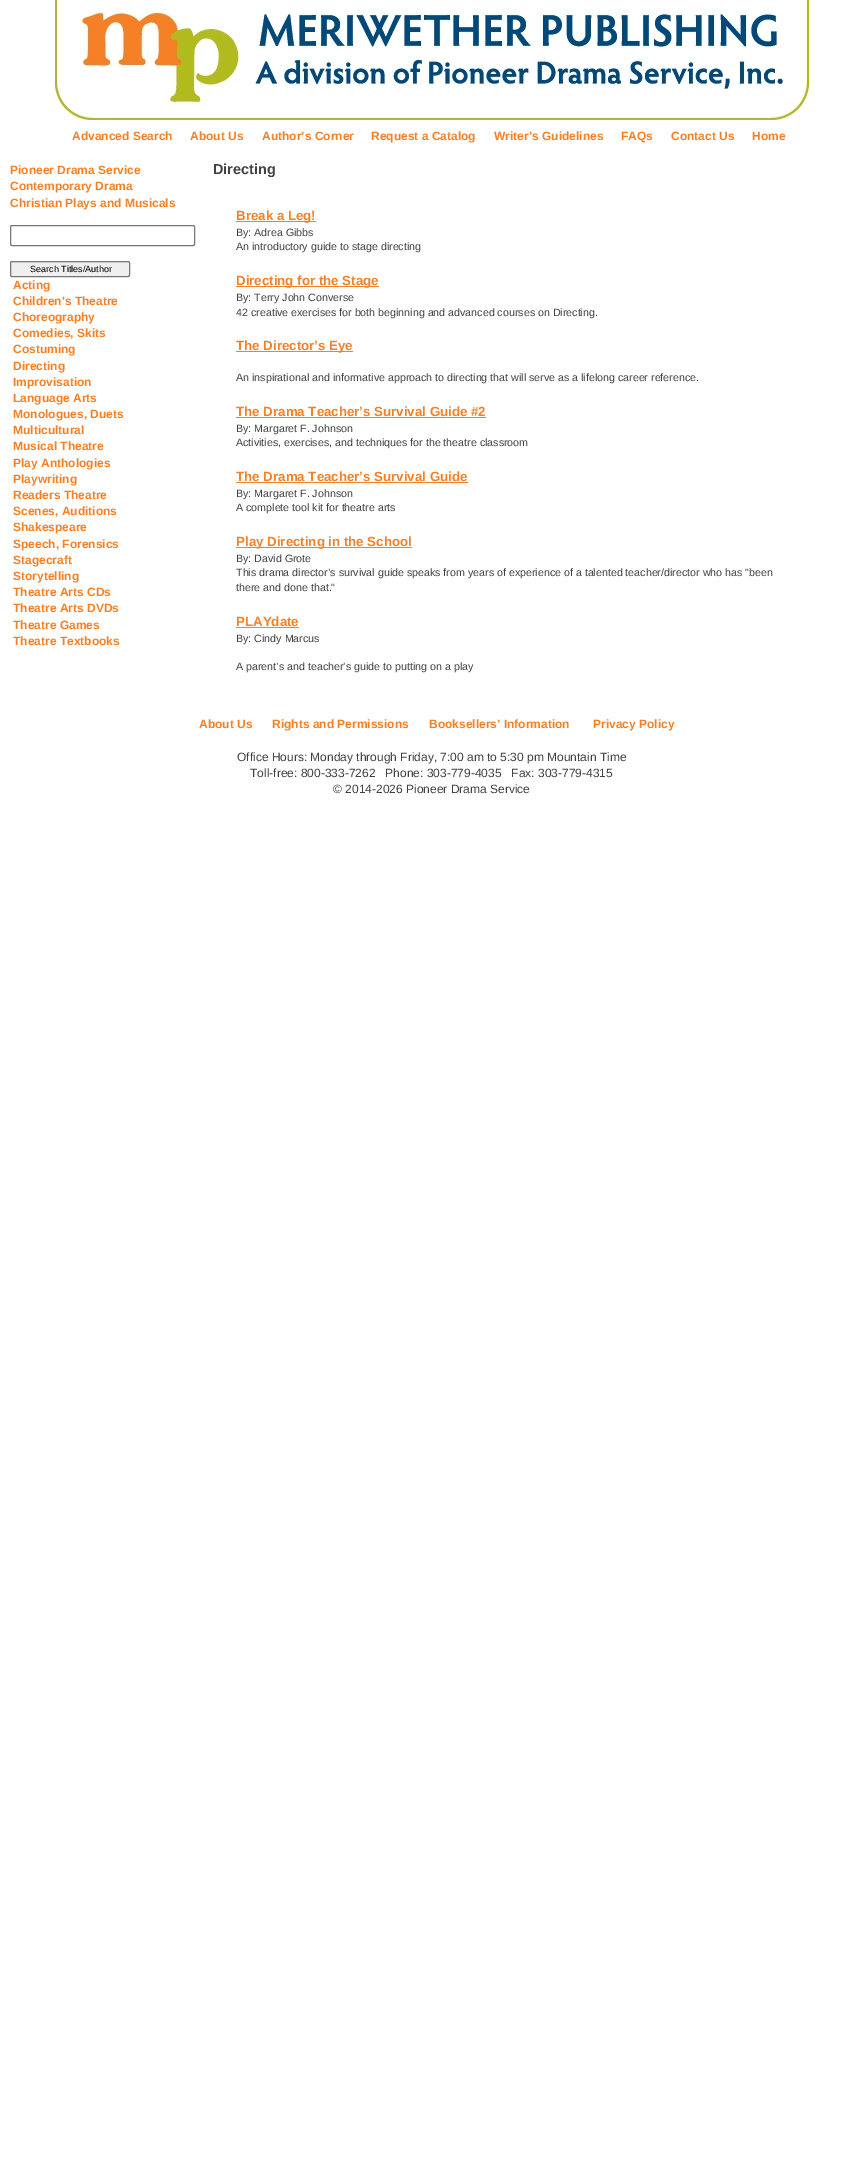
%!PS-Adobe-3.0
%%BoundingBox: 0 0 863 2169
%%LanguageLevel: 3
%%Pages: 1
%%EndComments
%%BeginProlog
/setink { 3 { 255 div 3 1 roll } repeat setrgbcolor } def
/usefont { [ exch dup neg 0 0 3 -1 roll 0 0 ] selectfont } def
/drawtext { setink usefont moveto show } def
/fillbox { setink rectfill } def
/rrect { 5 dict begin { /r /h /w /y /x } { exch def } forall
  x r add y moveto x w add y 2 copy h add r arct x w add y h add x 1 index r arct
  x y h add x y r arct x y 2 copy exch w add exch r arct closepath end } def
/drawimage { 5 dict begin { /h /w /y /x /name } { exch def } forall
  gsave x y translate w h scale
  w h 8 [w 0 0 h 0 0] name (r) file false 3 colorimage grestore end } def
%%EndProlog
%%BeginSetup
<< /PageSize [863 2169] >> setpagedevice
%%EndSetup
%%Page: 1 1
0 2169 translate 1 -1 scale
4 setmiterlimit
0 0 863 2169 255 255 255 fillbox
(assets/img1.rgb) 55 0 754 120 drawimage
(Advanced Search) 72 140 /LiberationSans-Bold 12 245 128 37 drawtext
(About Us) 190 140 /LiberationSans-Bold 12 245 128 37 drawtext
(Author’s Corner) 262 140 /LiberationSans-Bold 12 245 128 37 drawtext
(Request a Catalog) 371 140 /LiberationSans-Bold 12 245 128 37 drawtext
(Writer’s Guidelines) 494 140 /LiberationSans-Bold 12 245 128 37 drawtext
(FAQs) 621 140 /LiberationSans-Bold 12 245 128 37 drawtext
(Contact Us) 671 140 /LiberationSans-Bold 12 245 128 37 drawtext
(Home) 752 140 /LiberationSans-Bold 12 245 128 37 drawtext
(Pioneer Drama Service) 10 174 /LiberationSans-Bold 12 245 128 37 drawtext
(Contemporary Drama) 10 190 /LiberationSans-Bold 12 245 128 37 drawtext
(Christian Plays and Musicals) 10 207 /LiberationSans-Bold 12 245 128 37 drawtext
118 118 118 setink
10.5 225.5 184 20 1.5 rrect stroke
239 239 239 setink
10.5 261.5 119 15 1.5 rrect gsave fill grestore
118 118 118 setink
stroke
(Search Titles/Author) 30 272 /LiberationSans-Regular 9 0 0 0 drawtext
(Acting) 13 289 /LiberationSans-Bold 12 245 128 37 drawtext
(Children's Theatre) 13 305 /LiberationSans-Bold 12 245 128 37 drawtext
(Choreography) 13 321 /LiberationSans-Bold 12 245 128 37 drawtext
(Comedies, Skits) 13 337 /LiberationSans-Bold 12 245 128 37 drawtext
(Costuming) 13 353 /LiberationSans-Bold 12 245 128 37 drawtext
(Directing) 13 370 /LiberationSans-Bold 12 245 128 37 drawtext
(Improvisation) 13 386 /LiberationSans-Bold 12 245 128 37 drawtext
(Language Arts) 13 402 /LiberationSans-Bold 12 245 128 37 drawtext
(Monologues, Duets) 13 418 /LiberationSans-Bold 12 245 128 37 drawtext
(Multicultural) 13 434 /LiberationSans-Bold 12 245 128 37 drawtext
(Musical Theatre) 13 450 /LiberationSans-Bold 12 245 128 37 drawtext
(Play Anthologies) 13 467 /LiberationSans-Bold 12 245 128 37 drawtext
(Playwriting) 13 483 /LiberationSans-Bold 12 245 128 37 drawtext
(Readers Theatre) 13 499 /LiberationSans-Bold 12 245 128 37 drawtext
(Scenes, Auditions) 13 515 /LiberationSans-Bold 12 245 128 37 drawtext
(Shakespeare) 13 531 /LiberationSans-Bold 12 245 128 37 drawtext
(Speech, Forensics) 13 548 /LiberationSans-Bold 12 245 128 37 drawtext
(Stagecraft) 13 564 /LiberationSans-Bold 12 245 128 37 drawtext
(Storytelling) 13 580 /LiberationSans-Bold 12 245 128 37 drawtext
(Theatre Arts CDs) 13 596 /LiberationSans-Bold 12 245 128 37 drawtext
(Theatre Arts DVDs) 13 612 /LiberationSans-Bold 12 245 128 37 drawtext
(Theatre Games) 13 629 /LiberationSans-Bold 12 245 128 37 drawtext
(Theatre Textbooks) 13 645 /LiberationSans-Bold 12 245 128 37 drawtext
(Directing) 213 174 /LiberationSans-Bold 14.5 65 64 66 drawtext
236 221 80 1 245 128 37 fillbox
(Break a Leg!) 236 220 /LiberationSans-Bold 13.3 245 128 37 drawtext
(By: Adrea Gibbs) 236 236 /LiberationSans-Regular 10.67 65 64 66 drawtext
(An introductory guide to stage directing) 236 250 /LiberationSans-Regular 10.67 65 64 66 drawtext
236 286 143 1 245 128 37 fillbox
(Directing for the Stage) 236 285 /LiberationSans-Bold 13.3 245 128 37 drawtext
(By: Terry John Converse) 236 301 /LiberationSans-Regular 10.67 65 64 66 drawtext
(42 creative exercises for both beginning and advanced courses on Directing.) 236 316 /LiberationSans-Regular 10.67 65 64 66 drawtext
236 351 117 1 245 128 37 fillbox
(The Director’s Eye) 236 350 /LiberationSans-Bold 13.3 245 128 37 drawtext
(An inspirational and informative approach to directing that will serve as a lifelong career reference.) 236 381 /LiberationSans-Regular 10.67 65 64 66 drawtext
(The Drama Teacher’s Survival Guide #2) 236 416 /LiberationSans-Bold 13.3 245 128 37 drawtext
236 417 250 1 245 128 37 fillbox
(By: Margaret F. Johnson) 236 432 /LiberationSans-Regular 10.67 65 64 66 drawtext
(Activities, exercises, and techniques for the theatre classroom) 236 446 /LiberationSans-Regular 10.67 65 64 66 drawtext
(The Drama Teacher’s Survival Guide) 236 481 /LiberationSans-Bold 13.3 245 128 37 drawtext
236 482 232 1 245 128 37 fillbox
(By: Margaret F. Johnson) 236 497 /LiberationSans-Regular 10.67 65 64 66 drawtext
(A complete tool kit for theatre arts) 236 511 /LiberationSans-Regular 10.67 65 64 66 drawtext
236 547 176 1 245 128 37 fillbox
(Play Directing in the School) 236 546 /LiberationSans-Bold 13.3 245 128 37 drawtext
(By: David Grote) 236 562 /LiberationSans-Regular 10.67 65 64 66 drawtext
(This drama director’s survival guide speaks from years of experience of a talented teacher/director who has "been) 236 576 /LiberationSans-Regular 10.67 65 64 66 drawtext
(there and done that.") 236 591 /LiberationSans-Regular 10.67 65 64 66 drawtext
(PLAYdate) 236 626 /LiberationSans-Bold 13.3 245 128 37 drawtext
236 627 63 1 245 128 37 fillbox
(By: Cindy Marcus) 236 642 /LiberationSans-Regular 10.67 65 64 66 drawtext
(A parent’s and teacher’s guide to putting on a play) 236 670 /LiberationSans-Regular 10.67 65 64 66 drawtext
(About Us) 199 728 /LiberationSans-Bold 12 245 128 37 drawtext
(Rights and Permissions) 272 728 /LiberationSans-Bold 12 245 128 37 drawtext
(Booksellers’ Information) 429 728 /LiberationSans-Bold 12 245 128 37 drawtext
(Privacy Policy) 593 728 /LiberationSans-Bold 12 245 128 37 drawtext
(Office Hours: Monday through Friday, 7:00 am to 5:30 pm Mountain Time) 237 761 /LiberationSans-Regular 12 65 64 66 drawtext
(Toll-free: 800-333-7262   Phone: 303-779-4035   Fax: 303-779-4315) 250 777 /LiberationSans-Regular 12 65 64 66 drawtext
(© 2014-2026 Pioneer Drama Service) 333 793 /LiberationSans-Regular 12 65 64 66 drawtext
showpage
%%EOF
